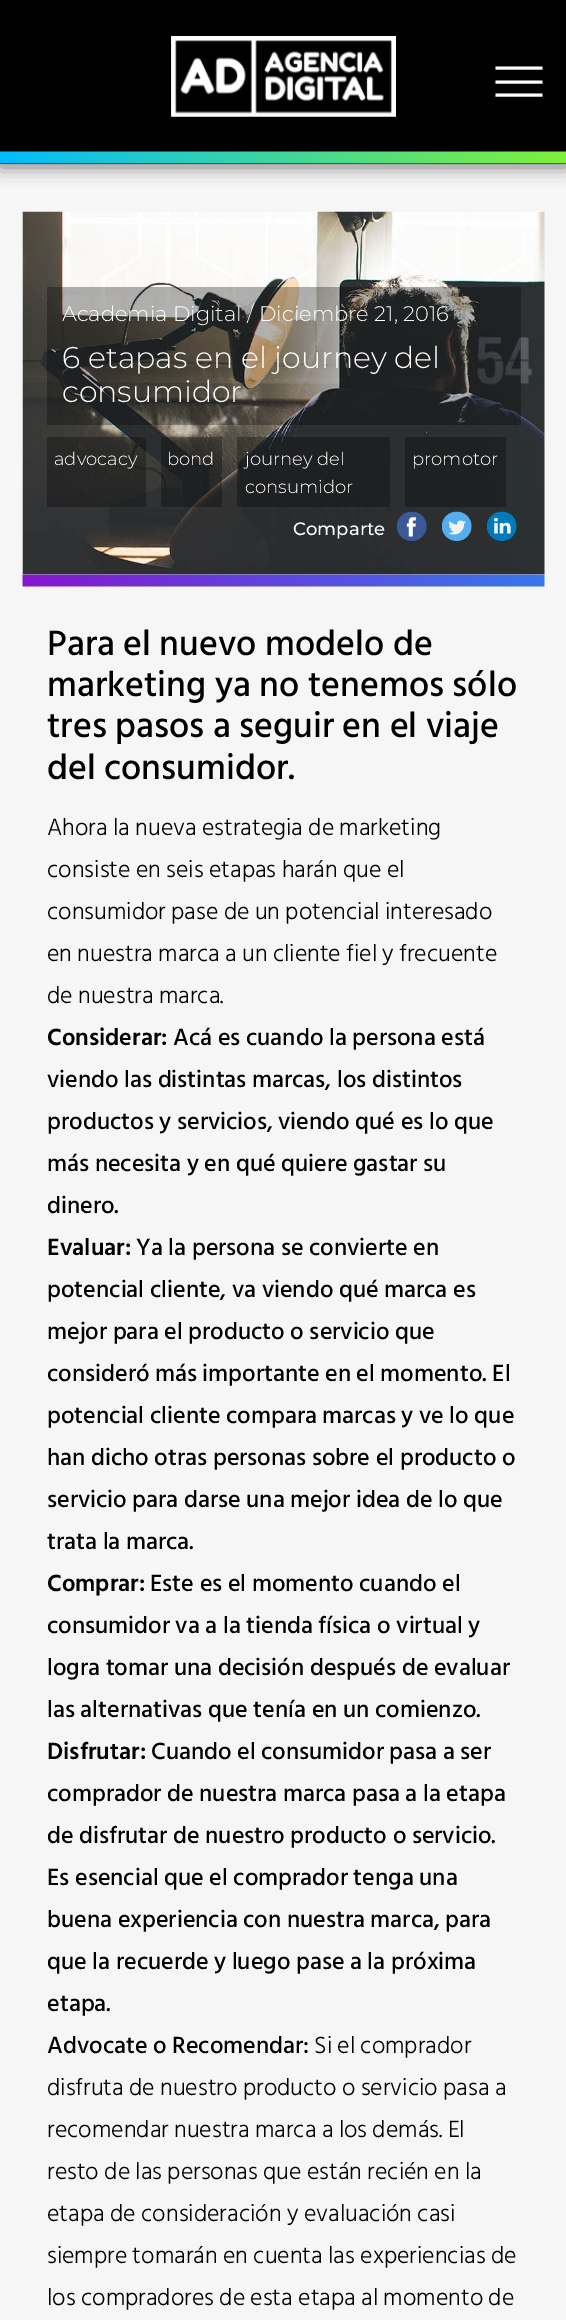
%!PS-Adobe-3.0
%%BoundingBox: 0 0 566 2320
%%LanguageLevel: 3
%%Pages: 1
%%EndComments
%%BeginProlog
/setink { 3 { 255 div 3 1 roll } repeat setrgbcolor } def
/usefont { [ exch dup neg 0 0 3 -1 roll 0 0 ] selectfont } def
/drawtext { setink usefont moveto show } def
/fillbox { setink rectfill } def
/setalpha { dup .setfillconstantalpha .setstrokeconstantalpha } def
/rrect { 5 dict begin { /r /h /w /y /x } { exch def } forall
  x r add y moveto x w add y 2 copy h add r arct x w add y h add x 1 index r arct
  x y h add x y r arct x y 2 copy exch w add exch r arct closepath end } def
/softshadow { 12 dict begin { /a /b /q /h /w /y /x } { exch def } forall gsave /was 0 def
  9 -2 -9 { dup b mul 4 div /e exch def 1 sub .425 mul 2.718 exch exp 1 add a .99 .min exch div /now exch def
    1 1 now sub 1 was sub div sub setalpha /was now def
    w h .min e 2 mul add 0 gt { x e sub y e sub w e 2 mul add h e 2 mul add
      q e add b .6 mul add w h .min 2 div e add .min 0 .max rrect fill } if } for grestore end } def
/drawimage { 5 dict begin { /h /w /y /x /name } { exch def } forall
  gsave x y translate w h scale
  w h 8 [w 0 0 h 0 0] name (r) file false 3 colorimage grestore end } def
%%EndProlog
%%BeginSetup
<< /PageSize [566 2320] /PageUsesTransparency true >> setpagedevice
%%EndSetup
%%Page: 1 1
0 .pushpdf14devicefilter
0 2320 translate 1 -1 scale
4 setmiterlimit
0 0 566 2320 246 246 246 fillbox
0 0 0 setink
0 3 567 164 0 9 0.5 softshadow
0 0 566 164 0 0 0 fillbox
(assets/img1.rgb) 0 151 566 13 drawimage
(assets/img2.rgb) 171 36 225 81 drawimage
255 255 255 setink
3 setlinewidth
2 setlinecap
497 68 moveto 541 68 lineto 497 82 moveto 541 82 lineto 497 95 moveto 541 95 lineto stroke
(assets/img3.rgb) 22 574 523 13 drawimage
(assets/img4.rgb) 22 211 523 364 drawimage
0.3 setalpha
47 287 474 54 0 0 0 fillbox
1 setalpha
(Academia Digital / Diciembre 21, 2016) 62 321 /Montserrat-Light 21 255 255 255 drawtext
0.3 setalpha
47 341 474 84 0 0 0 fillbox
1 setalpha
(6 etapas en el journey del) 62 368 /Montserrat-Light 30 255 255 255 drawtext
(consumidor) 62 402 /Montserrat-Light 30 255 255 255 drawtext
0.3 setalpha
47 437 99 70 0 0 0 fillbox
1 setalpha
(advocacy) 54 465 /Montserrat-Light 18 255 255 255 drawtext
0.3 setalpha
161 437 61 70 0 0 0 fillbox
1 setalpha
(bond) 167 465 /Montserrat-Light 18 255 255 255 drawtext
0.3 setalpha
237 437 153 70 0 0 0 fillbox
1 setalpha
(journey del) 245 465 /Montserrat-Light 18 255 255 255 drawtext
(consumidor) 245 493 /Montserrat-Light 18 255 255 255 drawtext
0.3 setalpha
405 437 101 70 0 0 0 fillbox
1 setalpha
(promotor) 412 465 /Montserrat-Light 18 255 255 255 drawtext
(Comparte) 293 535 /Montserrat-Medium 18 255 255 255 drawtext
(assets/img5.rgb) 397 511 30 30 drawimage
(assets/img6.rgb) 442 511 30 30 drawimage
(assets/img7.rgb) 487 511 30 30 drawimage
(Para el nuevo modelo de) 47 655 /HindSiliguri-Medium 36 0 0 0 drawtext
(marketing ya no tenemos sólo) 47 696 /HindSiliguri-Medium 36 0 0 0 drawtext
(tres pasos a seguir en el viaje) 47 737 /HindSiliguri-Medium 36 0 0 0 drawtext
(del consumidor.) 47 779 /HindSiliguri-Medium 36 0 0 0 drawtext
(Ahora la nueva estrategia de marketing) 47 835 /HindSiliguri-Light 24 0 0 0 drawtext
(consiste en seis etapas harán que el) 47 877 /HindSiliguri-Light 24 0 0 0 drawtext
(consumidor pase de un potencial interesado) 47 919 /HindSiliguri-Light 24 0 0 0 drawtext
(en nuestra marca a un cliente fiel y frecuente) 47 961 /HindSiliguri-Light 24 0 0 0 drawtext
(de nuestra marca.) 47 1003 /HindSiliguri-Light 24 0 0 0 drawtext
(Considerar:) 47 1045 /HindSiliguri-SemiBold 24 0 0 0 drawtext
(Acá es cuando la persona está) 173 1045 /HindSiliguri-Medium 24 0 0 0 drawtext
(viendo las distintas marcas, los distintos) 47 1087 /HindSiliguri-Medium 24 0 0 0 drawtext
(productos y servicios, viendo qué es lo que) 47 1129 /HindSiliguri-Medium 24 0 0 0 drawtext
(más necesita y en qué quiere gastar su) 47 1171 /HindSiliguri-Medium 24 0 0 0 drawtext
(dinero.) 47 1213 /HindSiliguri-Medium 24 0 0 0 drawtext
(Evaluar:) 47 1255 /HindSiliguri-SemiBold 24 0 0 0 drawtext
(Ya la persona se convierte en) 136 1255 /HindSiliguri-Medium 24 0 0 0 drawtext
(potencial cliente, va viendo qué marca es) 47 1297 /HindSiliguri-Medium 24 0 0 0 drawtext
(mejor para el producto o servicio que) 47 1339 /HindSiliguri-Medium 24 0 0 0 drawtext
(consideró más importante en el momento. El) 47 1381 /HindSiliguri-Medium 24 0 0 0 drawtext
(potencial cliente compara marcas y ve lo que) 47 1423 /HindSiliguri-Medium 24 0 0 0 drawtext
(han dicho otras personas sobre el producto o) 47 1465 /HindSiliguri-Medium 24 0 0 0 drawtext
(servicio para darse una mejor idea de lo que) 47 1507 /HindSiliguri-Medium 24 0 0 0 drawtext
(trata la marca.) 47 1549 /HindSiliguri-Medium 24 0 0 0 drawtext
(Comprar:) 47 1591 /HindSiliguri-SemiBold 24 0 0 0 drawtext
(Este es el momento cuando el) 150 1591 /HindSiliguri-Medium 24 0 0 0 drawtext
(consumidor va a la tienda física o virtual y) 47 1633 /HindSiliguri-Medium 24 0 0 0 drawtext
(logra tomar una decisión después de evaluar) 47 1675 /HindSiliguri-Medium 24 0 0 0 drawtext
(las alternativas que tenía en un comienzo.) 47 1717 /HindSiliguri-Medium 24 0 0 0 drawtext
(Disfrutar:) 47 1759 /HindSiliguri-SemiBold 24 0 0 0 drawtext
(Cuando el consumidor pasa a ser) 151 1759 /HindSiliguri-Medium 24 0 0 0 drawtext
(comprador de nuestra marca pasa a la etapa) 47 1801 /HindSiliguri-Medium 24 0 0 0 drawtext
(de disfrutar de nuestro producto o servicio.) 47 1843 /HindSiliguri-Medium 24 0 0 0 drawtext
(Es esencial que el comprador tenga una) 47 1885 /HindSiliguri-Medium 24 0 0 0 drawtext
(buena experiencia con nuestra marca, para) 47 1927 /HindSiliguri-Medium 24 0 0 0 drawtext
(que la recuerde y luego pase a la próxima) 47 1969 /HindSiliguri-Medium 24 0 0 0 drawtext
(etapa.) 47 2011 /HindSiliguri-Medium 24 0 0 0 drawtext
(Advocate o Recomendar:) 47 2053 /HindSiliguri-Medium 24 0 0 0 drawtext
(Si el comprador) 314 2053 /HindSiliguri-Light 24 0 0 0 drawtext
(disfruta de nuestro producto o servicio pasa a) 47 2095 /HindSiliguri-Light 24 0 0 0 drawtext
(recomendar nuestra marca a los demás. El) 47 2137 /HindSiliguri-Light 24 0 0 0 drawtext
(resto de las personas que están recién en la) 47 2179 /HindSiliguri-Light 24 0 0 0 drawtext
(etapa de consideración y evaluación casi) 47 2221 /HindSiliguri-Light 24 0 0 0 drawtext
(siempre tomarán en cuenta las experiencias de) 47 2263 /HindSiliguri-Light 24 0 0 0 drawtext
(los compradores de esta etapa al momento de) 47 2305 /HindSiliguri-Light 24 0 0 0 drawtext
.poppdf14devicefilter showpage
%%EOF
